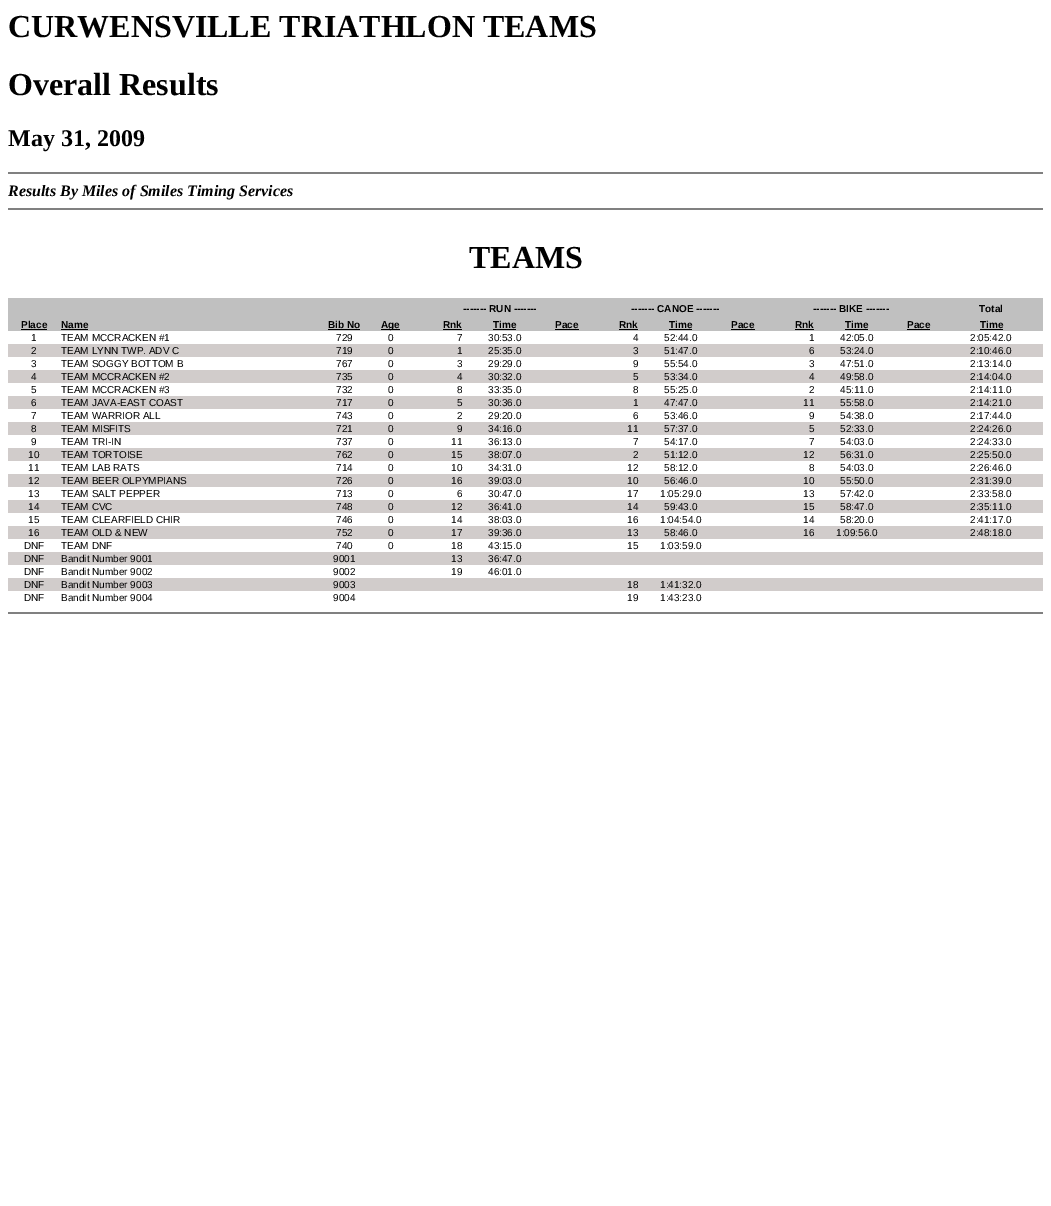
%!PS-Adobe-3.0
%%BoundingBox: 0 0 1051 1206
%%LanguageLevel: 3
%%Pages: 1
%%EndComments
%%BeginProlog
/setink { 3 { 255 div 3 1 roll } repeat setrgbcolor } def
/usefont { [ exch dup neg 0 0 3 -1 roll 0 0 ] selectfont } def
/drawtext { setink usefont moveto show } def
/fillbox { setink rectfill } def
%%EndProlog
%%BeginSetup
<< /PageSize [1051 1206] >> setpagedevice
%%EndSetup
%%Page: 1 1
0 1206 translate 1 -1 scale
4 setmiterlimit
0 0 1051 1206 255 255 255 fillbox
(CURWENSVILLE TRIATHLON TEAMS) 8 37 /LiberationSerif-Bold 32 0 0 0 drawtext
(Overall Results) 8 95 /LiberationSerif-Bold 32 0 0 0 drawtext
(May 31, 2009) 8 146 /LiberationSerif-Bold 24 0 0 0 drawtext
8 172 1035 2 128 128 128 fillbox
(Results By Miles of Smiles Timing Services) 8 196 /LiberationSerif-BoldItalic 16 0 0 0 drawtext
8 208 1035 2 128 128 128 fillbox
(TEAMS) 469 268 /LiberationSerif-Bold 32 0 0 0 drawtext
8 298 1035 33 192 192 192 fillbox
(------- RUN -------) 463 312 /LiberationSans-Bold 10 0 0 0 drawtext
(------- CANOE -------) 631 312 /LiberationSans-Bold 10 0 0 0 drawtext
(------- BIKE -------) 813 312 /LiberationSans-Bold 10 0 0 0 drawtext
(Total) 979 312 /LiberationSans-Bold 10 0 0 0 drawtext
(Place) 21 328 /LiberationSans-Bold 10 0 0 0 drawtext
21 329 26 1 0 0 0 fillbox
(Name) 61 328 /LiberationSans-Bold 10 0 0 0 drawtext
61 329 27 1 0 0 0 fillbox
(Bib No) 328 328 /LiberationSans-Bold 10 0 0 0 drawtext
328 329 32 1 0 0 0 fillbox
381 329 19 1 0 0 0 fillbox
(Age) 381 328 /LiberationSans-Bold 10 0 0 0 drawtext
(Rnk) 443 328 /LiberationSans-Bold 10 0 0 0 drawtext
443 329 19 1 0 0 0 fillbox
(Time) 493 328 /LiberationSans-Bold 10 0 0 0 drawtext
493 329 23 1 0 0 0 fillbox
(Pace) 555 328 /LiberationSans-Bold 10 0 0 0 drawtext
555 329 24 1 0 0 0 fillbox
(Rnk) 619 328 /LiberationSans-Bold 10 0 0 0 drawtext
619 329 19 1 0 0 0 fillbox
(Time) 669 328 /LiberationSans-Bold 10 0 0 0 drawtext
669 329 23 1 0 0 0 fillbox
(Pace) 731 328 /LiberationSans-Bold 10 0 0 0 drawtext
731 329 24 1 0 0 0 fillbox
(Rnk) 795 328 /LiberationSans-Bold 10 0 0 0 drawtext
795 329 19 1 0 0 0 fillbox
(Time) 845 328 /LiberationSans-Bold 10 0 0 0 drawtext
845 329 23 1 0 0 0 fillbox
(Pace) 907 328 /LiberationSans-Bold 10 0 0 0 drawtext
907 329 23 1 0 0 0 fillbox
(Time) 980 328 /LiberationSans-Bold 10 0 0 0 drawtext
980 329 23 1 0 0 0 fillbox
(1) 31 341 /LiberationSans-Regular 10 0 0 0 drawtext
(TEAM MCCRACKEN #1) 61 341 /LiberationSans-Regular 10 0 0 0 drawtext
(729) 336 341 /LiberationSans-Regular 10 0 0 0 drawtext
(0) 388 341 /LiberationSans-Regular 10 0 0 0 drawtext
(7) 457 341 /LiberationSans-Regular 10 0 0 0 drawtext
(30:53.0) 488 341 /LiberationSans-Regular 10 0 0 0 drawtext
(4) 633 341 /LiberationSans-Regular 10 0 0 0 drawtext
(52:44.0) 664 341 /LiberationSans-Regular 10 0 0 0 drawtext
(1) 809 341 /LiberationSans-Regular 10 0 0 0 drawtext
(42:05.0) 840 341 /LiberationSans-Regular 10 0 0 0 drawtext
(2:05:42.0) 970 341 /LiberationSans-Regular 10 0 0 0 drawtext
8 344 1035 13 209 204 203 fillbox
(2) 31 354 /LiberationSans-Regular 10 0 0 0 drawtext
(TEAM LYNN TWP. ADV C) 61 354 /LiberationSans-Regular 10 0 0 0 drawtext
(719) 336 354 /LiberationSans-Regular 10 0 0 0 drawtext
(0) 388 354 /LiberationSans-Regular 10 0 0 0 drawtext
(1) 457 354 /LiberationSans-Regular 10 0 0 0 drawtext
(25:35.0) 488 354 /LiberationSans-Regular 10 0 0 0 drawtext
(3) 633 354 /LiberationSans-Regular 10 0 0 0 drawtext
(51:47.0) 664 354 /LiberationSans-Regular 10 0 0 0 drawtext
(6) 809 354 /LiberationSans-Regular 10 0 0 0 drawtext
(53:24.0) 840 354 /LiberationSans-Regular 10 0 0 0 drawtext
(2:10:46.0) 970 354 /LiberationSans-Regular 10 0 0 0 drawtext
(3) 31 367 /LiberationSans-Regular 10 0 0 0 drawtext
(TEAM SOGGY BOTTOM B) 61 367 /LiberationSans-Regular 10 0 0 0 drawtext
(767) 336 367 /LiberationSans-Regular 10 0 0 0 drawtext
(0) 388 367 /LiberationSans-Regular 10 0 0 0 drawtext
(3) 457 367 /LiberationSans-Regular 10 0 0 0 drawtext
(29:29.0) 488 367 /LiberationSans-Regular 10 0 0 0 drawtext
(9) 633 367 /LiberationSans-Regular 10 0 0 0 drawtext
(55:54.0) 664 367 /LiberationSans-Regular 10 0 0 0 drawtext
(3) 809 367 /LiberationSans-Regular 10 0 0 0 drawtext
(47:51.0) 840 367 /LiberationSans-Regular 10 0 0 0 drawtext
(2:13:14.0) 970 367 /LiberationSans-Regular 10 0 0 0 drawtext
8 370 1035 13 209 204 203 fillbox
(4) 31 380 /LiberationSans-Regular 10 0 0 0 drawtext
(TEAM MCCRACKEN #2) 61 380 /LiberationSans-Regular 10 0 0 0 drawtext
(735) 336 380 /LiberationSans-Regular 10 0 0 0 drawtext
(0) 388 380 /LiberationSans-Regular 10 0 0 0 drawtext
(4) 457 380 /LiberationSans-Regular 10 0 0 0 drawtext
(30:32.0) 488 380 /LiberationSans-Regular 10 0 0 0 drawtext
(5) 633 380 /LiberationSans-Regular 10 0 0 0 drawtext
(53:34.0) 664 380 /LiberationSans-Regular 10 0 0 0 drawtext
(4) 809 380 /LiberationSans-Regular 10 0 0 0 drawtext
(49:58.0) 840 380 /LiberationSans-Regular 10 0 0 0 drawtext
(2:14:04.0) 970 380 /LiberationSans-Regular 10 0 0 0 drawtext
(5) 31 393 /LiberationSans-Regular 10 0 0 0 drawtext
(TEAM MCCRACKEN #3) 61 393 /LiberationSans-Regular 10 0 0 0 drawtext
(732) 336 393 /LiberationSans-Regular 10 0 0 0 drawtext
(0) 388 393 /LiberationSans-Regular 10 0 0 0 drawtext
(8) 457 393 /LiberationSans-Regular 10 0 0 0 drawtext
(33:35.0) 488 393 /LiberationSans-Regular 10 0 0 0 drawtext
(8) 633 393 /LiberationSans-Regular 10 0 0 0 drawtext
(55:25.0) 664 393 /LiberationSans-Regular 10 0 0 0 drawtext
(2) 809 393 /LiberationSans-Regular 10 0 0 0 drawtext
(45:11.0) 840 393 /LiberationSans-Regular 10 0 0 0 drawtext
(2:14:11.0) 970 393 /LiberationSans-Regular 10 0 0 0 drawtext
8 396 1035 13 209 204 203 fillbox
(6) 31 406 /LiberationSans-Regular 10 0 0 0 drawtext
(TEAM JAVA-EAST COAST) 61 406 /LiberationSans-Regular 10 0 0 0 drawtext
(717) 336 406 /LiberationSans-Regular 10 0 0 0 drawtext
(0) 388 406 /LiberationSans-Regular 10 0 0 0 drawtext
(5) 457 406 /LiberationSans-Regular 10 0 0 0 drawtext
(30:36.0) 488 406 /LiberationSans-Regular 10 0 0 0 drawtext
(1) 633 406 /LiberationSans-Regular 10 0 0 0 drawtext
(47:47.0) 664 406 /LiberationSans-Regular 10 0 0 0 drawtext
(11) 803 406 /LiberationSans-Regular 10 0 0 0 drawtext
(55:58.0) 840 406 /LiberationSans-Regular 10 0 0 0 drawtext
(2:14:21.0) 970 406 /LiberationSans-Regular 10 0 0 0 drawtext
(7) 31 419 /LiberationSans-Regular 10 0 0 0 drawtext
(TEAM WARRIOR ALL) 61 419 /LiberationSans-Regular 10 0 0 0 drawtext
(743) 336 419 /LiberationSans-Regular 10 0 0 0 drawtext
(0) 388 419 /LiberationSans-Regular 10 0 0 0 drawtext
(2) 457 419 /LiberationSans-Regular 10 0 0 0 drawtext
(29:20.0) 488 419 /LiberationSans-Regular 10 0 0 0 drawtext
(6) 633 419 /LiberationSans-Regular 10 0 0 0 drawtext
(53:46.0) 664 419 /LiberationSans-Regular 10 0 0 0 drawtext
(9) 809 419 /LiberationSans-Regular 10 0 0 0 drawtext
(54:38.0) 840 419 /LiberationSans-Regular 10 0 0 0 drawtext
(2:17:44.0) 970 419 /LiberationSans-Regular 10 0 0 0 drawtext
8 422 1035 13 209 204 203 fillbox
(8) 31 432 /LiberationSans-Regular 10 0 0 0 drawtext
(TEAM MISFITS) 61 432 /LiberationSans-Regular 10 0 0 0 drawtext
(721) 336 432 /LiberationSans-Regular 10 0 0 0 drawtext
(0) 388 432 /LiberationSans-Regular 10 0 0 0 drawtext
(9) 457 432 /LiberationSans-Regular 10 0 0 0 drawtext
(34:16.0) 488 432 /LiberationSans-Regular 10 0 0 0 drawtext
(11) 627 432 /LiberationSans-Regular 10 0 0 0 drawtext
(57:37.0) 664 432 /LiberationSans-Regular 10 0 0 0 drawtext
(5) 809 432 /LiberationSans-Regular 10 0 0 0 drawtext
(52:33.0) 840 432 /LiberationSans-Regular 10 0 0 0 drawtext
(2:24:26.0) 970 432 /LiberationSans-Regular 10 0 0 0 drawtext
(9) 31 445 /LiberationSans-Regular 10 0 0 0 drawtext
(TEAM TRI-IN) 61 445 /LiberationSans-Regular 10 0 0 0 drawtext
(737) 336 445 /LiberationSans-Regular 10 0 0 0 drawtext
(0) 388 445 /LiberationSans-Regular 10 0 0 0 drawtext
(11) 451 445 /LiberationSans-Regular 10 0 0 0 drawtext
(36:13.0) 488 445 /LiberationSans-Regular 10 0 0 0 drawtext
(7) 633 445 /LiberationSans-Regular 10 0 0 0 drawtext
(54:17.0) 664 445 /LiberationSans-Regular 10 0 0 0 drawtext
(7) 809 445 /LiberationSans-Regular 10 0 0 0 drawtext
(54:03.0) 840 445 /LiberationSans-Regular 10 0 0 0 drawtext
(2:24:33.0) 970 445 /LiberationSans-Regular 10 0 0 0 drawtext
8 448 1035 13 209 204 203 fillbox
(10) 28 458 /LiberationSans-Regular 10 0 0 0 drawtext
(TEAM TORTOISE) 61 458 /LiberationSans-Regular 10 0 0 0 drawtext
(762) 336 458 /LiberationSans-Regular 10 0 0 0 drawtext
(0) 388 458 /LiberationSans-Regular 10 0 0 0 drawtext
(15) 451 458 /LiberationSans-Regular 10 0 0 0 drawtext
(38:07.0) 488 458 /LiberationSans-Regular 10 0 0 0 drawtext
(2) 633 458 /LiberationSans-Regular 10 0 0 0 drawtext
(51:12.0) 664 458 /LiberationSans-Regular 10 0 0 0 drawtext
(12) 803 458 /LiberationSans-Regular 10 0 0 0 drawtext
(56:31.0) 840 458 /LiberationSans-Regular 10 0 0 0 drawtext
(2:25:50.0) 970 458 /LiberationSans-Regular 10 0 0 0 drawtext
(11) 28 471 /LiberationSans-Regular 10 0 0 0 drawtext
(TEAM LAB RATS) 61 471 /LiberationSans-Regular 10 0 0 0 drawtext
(714) 336 471 /LiberationSans-Regular 10 0 0 0 drawtext
(0) 388 471 /LiberationSans-Regular 10 0 0 0 drawtext
(10) 451 471 /LiberationSans-Regular 10 0 0 0 drawtext
(34:31.0) 488 471 /LiberationSans-Regular 10 0 0 0 drawtext
(12) 627 471 /LiberationSans-Regular 10 0 0 0 drawtext
(58:12.0) 664 471 /LiberationSans-Regular 10 0 0 0 drawtext
(8) 809 471 /LiberationSans-Regular 10 0 0 0 drawtext
(54:03.0) 840 471 /LiberationSans-Regular 10 0 0 0 drawtext
(2:26:46.0) 970 471 /LiberationSans-Regular 10 0 0 0 drawtext
8 474 1035 13 209 204 203 fillbox
(12) 28 484 /LiberationSans-Regular 10 0 0 0 drawtext
(TEAM BEER OLPYMPIANS) 61 484 /LiberationSans-Regular 10 0 0 0 drawtext
(726) 336 484 /LiberationSans-Regular 10 0 0 0 drawtext
(0) 388 484 /LiberationSans-Regular 10 0 0 0 drawtext
(16) 451 484 /LiberationSans-Regular 10 0 0 0 drawtext
(39:03.0) 488 484 /LiberationSans-Regular 10 0 0 0 drawtext
(10) 627 484 /LiberationSans-Regular 10 0 0 0 drawtext
(56:46.0) 664 484 /LiberationSans-Regular 10 0 0 0 drawtext
(10) 803 484 /LiberationSans-Regular 10 0 0 0 drawtext
(55:50.0) 840 484 /LiberationSans-Regular 10 0 0 0 drawtext
(2:31:39.0) 970 484 /LiberationSans-Regular 10 0 0 0 drawtext
(13) 28 497 /LiberationSans-Regular 10 0 0 0 drawtext
(TEAM SALT PEPPER) 61 497 /LiberationSans-Regular 10 0 0 0 drawtext
(713) 336 497 /LiberationSans-Regular 10 0 0 0 drawtext
(0) 388 497 /LiberationSans-Regular 10 0 0 0 drawtext
(6) 457 497 /LiberationSans-Regular 10 0 0 0 drawtext
(30:47.0) 488 497 /LiberationSans-Regular 10 0 0 0 drawtext
(17) 627 497 /LiberationSans-Regular 10 0 0 0 drawtext
(1:05:29.0) 660 497 /LiberationSans-Regular 10 0 0 0 drawtext
(13) 803 497 /LiberationSans-Regular 10 0 0 0 drawtext
(57:42.0) 840 497 /LiberationSans-Regular 10 0 0 0 drawtext
(2:33:58.0) 970 497 /LiberationSans-Regular 10 0 0 0 drawtext
8 500 1035 13 209 204 203 fillbox
(14) 28 510 /LiberationSans-Regular 10 0 0 0 drawtext
(TEAM CVC) 61 510 /LiberationSans-Regular 10 0 0 0 drawtext
(748) 336 510 /LiberationSans-Regular 10 0 0 0 drawtext
(0) 388 510 /LiberationSans-Regular 10 0 0 0 drawtext
(12) 451 510 /LiberationSans-Regular 10 0 0 0 drawtext
(36:41.0) 488 510 /LiberationSans-Regular 10 0 0 0 drawtext
(14) 627 510 /LiberationSans-Regular 10 0 0 0 drawtext
(59:43.0) 664 510 /LiberationSans-Regular 10 0 0 0 drawtext
(15) 803 510 /LiberationSans-Regular 10 0 0 0 drawtext
(58:47.0) 840 510 /LiberationSans-Regular 10 0 0 0 drawtext
(2:35:11.0) 970 510 /LiberationSans-Regular 10 0 0 0 drawtext
(15) 28 523 /LiberationSans-Regular 10 0 0 0 drawtext
(TEAM CLEARFIELD CHIR) 61 523 /LiberationSans-Regular 10 0 0 0 drawtext
(746) 336 523 /LiberationSans-Regular 10 0 0 0 drawtext
(0) 388 523 /LiberationSans-Regular 10 0 0 0 drawtext
(14) 451 523 /LiberationSans-Regular 10 0 0 0 drawtext
(38:03.0) 488 523 /LiberationSans-Regular 10 0 0 0 drawtext
(16) 627 523 /LiberationSans-Regular 10 0 0 0 drawtext
(1:04:54.0) 660 523 /LiberationSans-Regular 10 0 0 0 drawtext
(14) 803 523 /LiberationSans-Regular 10 0 0 0 drawtext
(58:20.0) 840 523 /LiberationSans-Regular 10 0 0 0 drawtext
(2:41:17.0) 970 523 /LiberationSans-Regular 10 0 0 0 drawtext
8 526 1035 13 209 204 203 fillbox
(16) 28 536 /LiberationSans-Regular 10 0 0 0 drawtext
(TEAM OLD & NEW) 61 536 /LiberationSans-Regular 10 0 0 0 drawtext
(752) 336 536 /LiberationSans-Regular 10 0 0 0 drawtext
(0) 388 536 /LiberationSans-Regular 10 0 0 0 drawtext
(17) 451 536 /LiberationSans-Regular 10 0 0 0 drawtext
(39:36.0) 488 536 /LiberationSans-Regular 10 0 0 0 drawtext
(13) 627 536 /LiberationSans-Regular 10 0 0 0 drawtext
(58:46.0) 664 536 /LiberationSans-Regular 10 0 0 0 drawtext
(16) 803 536 /LiberationSans-Regular 10 0 0 0 drawtext
(1:09:56.0) 836 536 /LiberationSans-Regular 10 0 0 0 drawtext
(2:48:18.0) 970 536 /LiberationSans-Regular 10 0 0 0 drawtext
(DNF) 24 549 /LiberationSans-Regular 10 0 0 0 drawtext
(TEAM DNF) 61 549 /LiberationSans-Regular 10 0 0 0 drawtext
(740) 336 549 /LiberationSans-Regular 10 0 0 0 drawtext
(0) 388 549 /LiberationSans-Regular 10 0 0 0 drawtext
(18) 451 549 /LiberationSans-Regular 10 0 0 0 drawtext
(43:15.0) 488 549 /LiberationSans-Regular 10 0 0 0 drawtext
(15) 627 549 /LiberationSans-Regular 10 0 0 0 drawtext
(1:03:59.0) 660 549 /LiberationSans-Regular 10 0 0 0 drawtext
8 552 1035 13 209 204 203 fillbox
(DNF) 24 562 /LiberationSans-Regular 10 0 0 0 drawtext
(Bandit Number 9001) 61 562 /LiberationSans-Regular 10 0 0 0 drawtext
(9001) 333 562 /LiberationSans-Regular 10 0 0 0 drawtext
(13) 451 562 /LiberationSans-Regular 10 0 0 0 drawtext
(36:47.0) 488 562 /LiberationSans-Regular 10 0 0 0 drawtext
(DNF) 24 575 /LiberationSans-Regular 10 0 0 0 drawtext
(Bandit Number 9002) 61 575 /LiberationSans-Regular 10 0 0 0 drawtext
(9002) 333 575 /LiberationSans-Regular 10 0 0 0 drawtext
(19) 451 575 /LiberationSans-Regular 10 0 0 0 drawtext
(46:01.0) 488 575 /LiberationSans-Regular 10 0 0 0 drawtext
8 578 1035 13 209 204 203 fillbox
(DNF) 24 588 /LiberationSans-Regular 10 0 0 0 drawtext
(Bandit Number 9003) 61 588 /LiberationSans-Regular 10 0 0 0 drawtext
(9003) 333 588 /LiberationSans-Regular 10 0 0 0 drawtext
(18) 627 588 /LiberationSans-Regular 10 0 0 0 drawtext
(1:41:32.0) 660 588 /LiberationSans-Regular 10 0 0 0 drawtext
(DNF) 24 601 /LiberationSans-Regular 10 0 0 0 drawtext
(Bandit Number 9004) 61 601 /LiberationSans-Regular 10 0 0 0 drawtext
(9004) 333 601 /LiberationSans-Regular 10 0 0 0 drawtext
(19) 627 601 /LiberationSans-Regular 10 0 0 0 drawtext
(1:43:23.0) 660 601 /LiberationSans-Regular 10 0 0 0 drawtext
8 612 1035 2 128 128 128 fillbox
showpage
%%EOF
